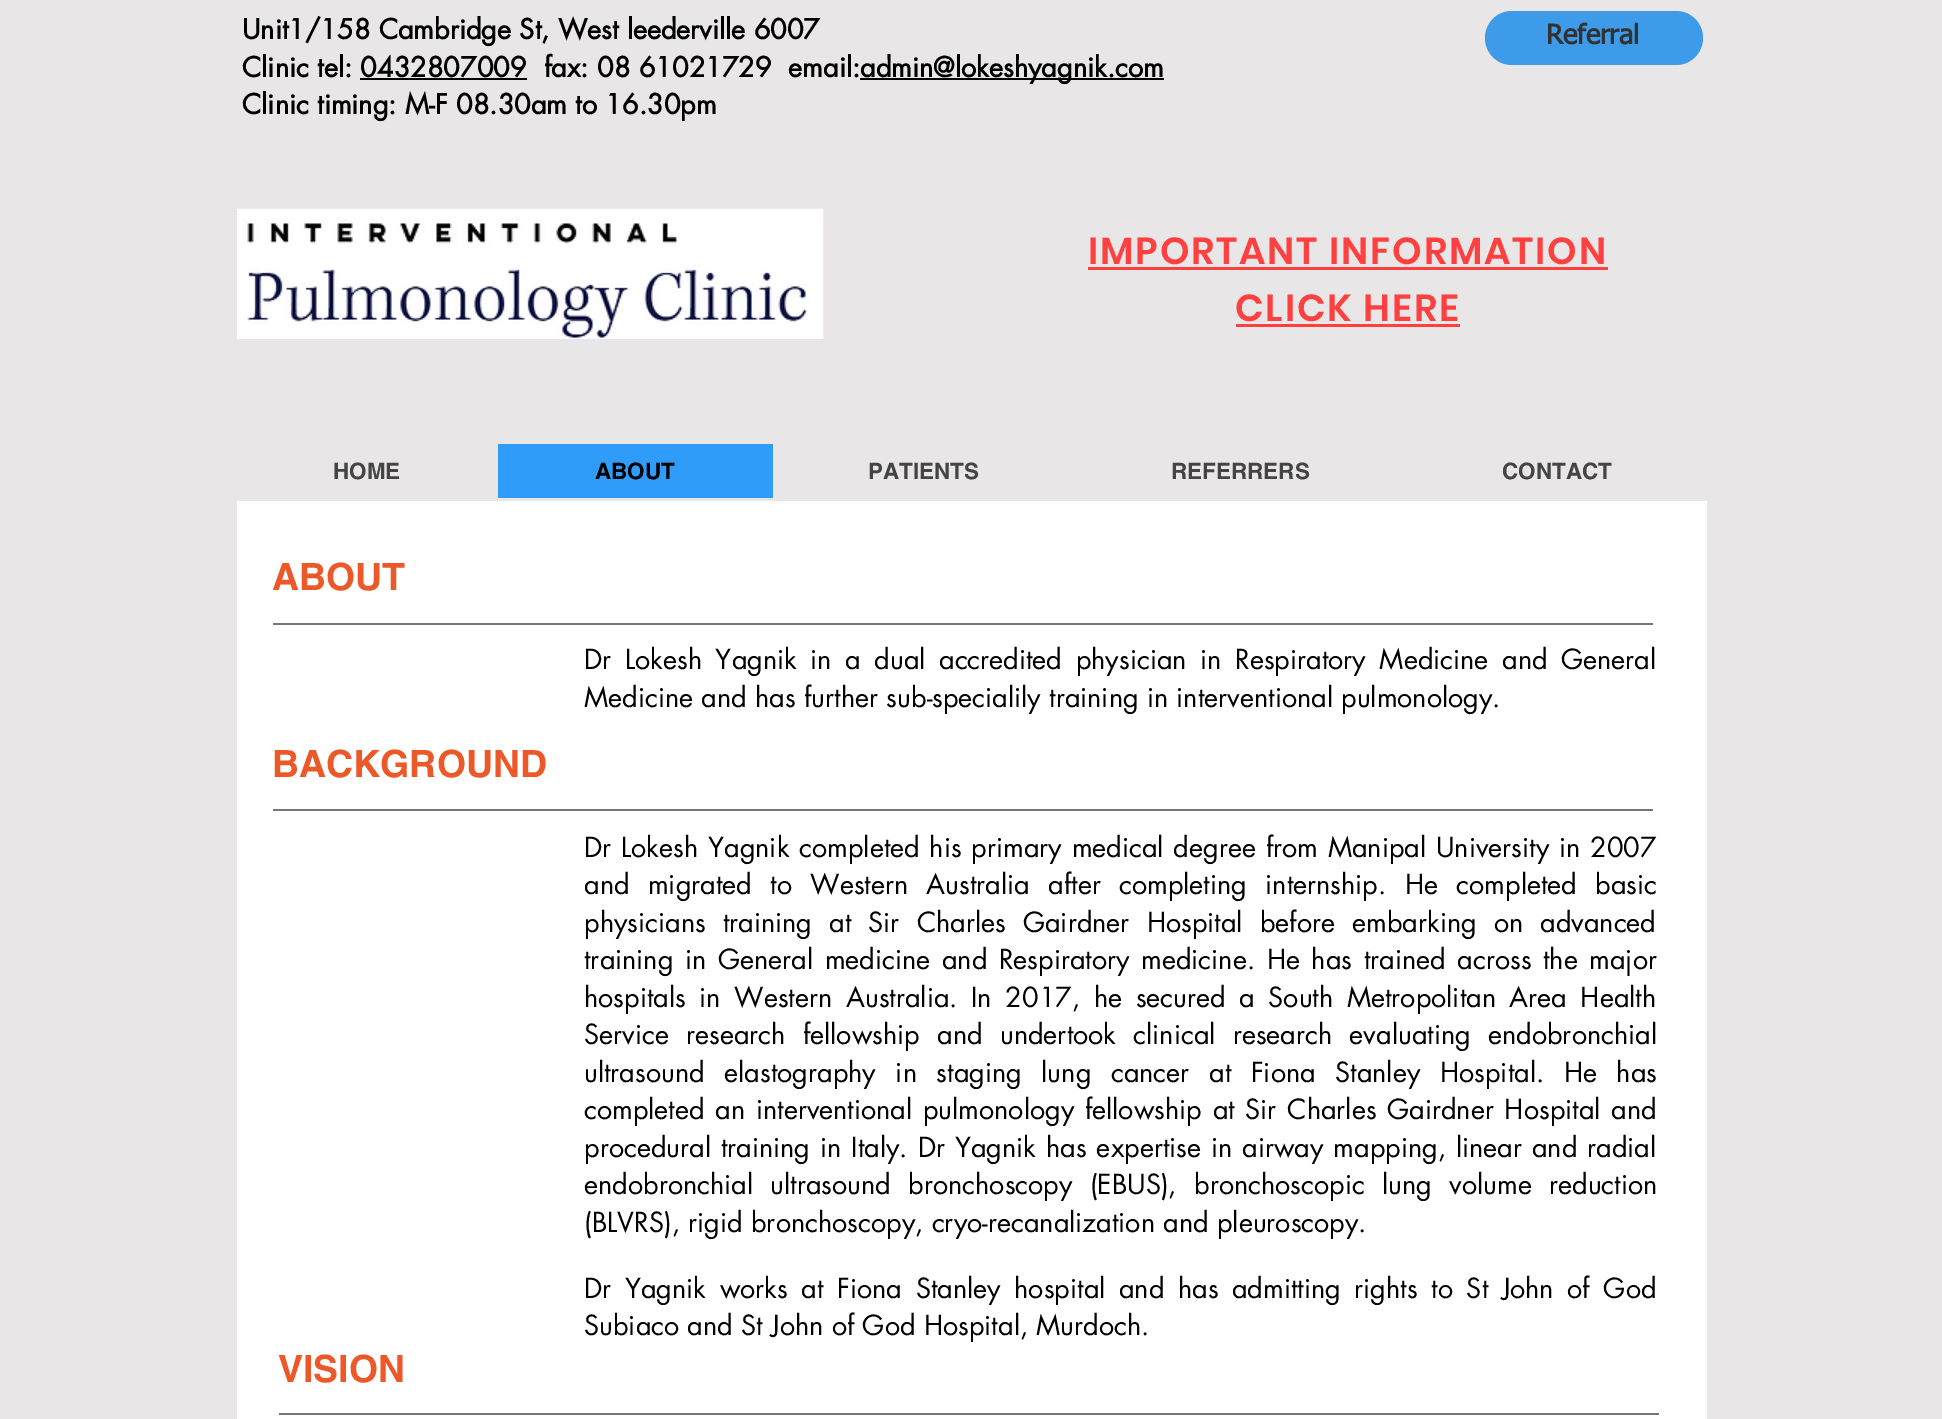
%!PS-Adobe-3.0
%%BoundingBox: 0 0 1942 1419
%%LanguageLevel: 3
%%Pages: 1
%%EndComments
%%BeginProlog
/setink { 3 { 255 div 3 1 roll } repeat setrgbcolor } def
/usefont { [ exch dup neg 0 0 3 -1 roll 0 0 ] selectfont } def
/drawtext { setink usefont moveto show } def
/fillbox { setink rectfill } def
/rrect { 5 dict begin { /r /h /w /y /x } { exch def } forall
  x r add y moveto x w add y 2 copy h add r arct x w add y h add x 1 index r arct
  x y h add x y r arct x y 2 copy exch w add exch r arct closepath end } def
/drawimage { 5 dict begin { /h /w /y /x /name } { exch def } forall
  gsave x y translate w h scale
  w h 8 [w 0 0 h 0 0] name (r) file false 3 colorimage grestore end } def
%%EndProlog
%%BeginSetup
<< /PageSize [1942 1419] >> setpagedevice
%%EndSetup
%%Page: 1 1
0 1419 translate 1 -1 scale
4 setmiterlimit
0 0 1942 1419 232 230 230 fillbox
(Unit1/158 Cambridge St, West leederville 6007) 242 39 /futura-Bold 27 0 0 0 drawtext
(Clinic tel: 0432807009) 242 77 /futura-Bold 27 0 0 0 drawtext
360 78 167 2 0 0 0 fillbox
(fax: 08 61021729  email:) 544 77 /futura-Bold 27 0 0 0 drawtext
860 78 304 2 0 0 0 fillbox
(admin@lokeshyagnik.com) 860 77 /futura-Bold 27 0 0 0 drawtext
(Clinic timing: M-F 08.30am to 16.30pm) 242 114 /futura-Bold 27 0 0 0 drawtext
61 155 233 setink
1485 11 218 54 27 rrect fill
(Referral) 1546 44 /tahoma-Bold 27 50 50 50 drawtext
(assets/img1.rgb) 237 208 587 131 drawimage
/Poppins-SemiBold 37.5 usefont
255 64 64 setink
1088 264 moveto 1.9 0 (IMPORTANT INFORMATION) ashow
1088 267 520 3 255 64 64 fillbox
1235 321 moveto 1.9 0 (CLICK HERE) ashow
1236 324 224 3 255 64 64 fillbox
(HOME) 333 479 /helvetica-Bold 22.5 68 68 68 drawtext
498 444 275 54 46 156 248 fillbox
(ABOUT) 595 479 /helvetica-Bold 22.5 0 0 0 drawtext
(PATIENTS) 868 479 /helvetica-Bold 22.5 68 68 68 drawtext
(REFERRERS) 1171 479 /helvetica-Bold 22.5 68 68 68 drawtext
(CONTACT) 1502 479 /helvetica-Bold 22.5 68 68 68 drawtext
237 501 1470 918 255 255 255 fillbox
(ABOUT) 272 590 /helvetica-Bold 37.5 237 88 41 drawtext
273 623 1380 2 118 118 118 fillbox
/futura-Regular 27 usefont
0 0 0 setink
584 669 moveto 5.25 0 32 (Dr Lokesh Yagnik in a dual accredited physician in Respiratory Medicine and General) widthshow
(Medicine and has further sub-specialily training in interventional pulmonology.) 584 707 /futura-Regular 27 0 0 0 drawtext
(BACKGROUND) 272 777 /helvetica-Bold 37.5 237 88 41 drawtext
273 809 1380 2 118 118 118 fillbox
/futura-Regular 27 usefont
0 0 0 setink
584 857 moveto 1.5 0 32 (Dr Lokesh Yagnik completed his primary medical degree from Manipal University in 2007) widthshow
584 894 moveto 10 0 32 (and migrated to Western Australia after completing internship. He completed basic) widthshow
584 932 moveto 8.75 0 32 (physicians training at Sir Charles Gairdner Hospital before embarking on advanced) widthshow
584 969 moveto 3.25 0 32 (training in General medicine and Respiratory medicine. He has trained across the major) widthshow
584 1007 moveto 5.25 0 32 (hospitals in Western Australia. In 2017, he secured a South Metropolitan Area Health) widthshow
584 1044 moveto 9 0 32 (Service research fellowship and undertook clinical research evaluating endobronchial) widthshow
584 1082 moveto 11.25 0 32 (ultrasound elastography in staging lung cancer at Fiona Stanley Hospital. He has) widthshow
584 1119 moveto 2.4 0 32 (completed an interventional pulmonology fellowship at Sir Charles Gairdner Hospital and) widthshow
584 1157 moveto 1.6 0 32 (procedural training in Italy. Dr Yagnik has expertise in airway mapping, linear and radial) widthshow
584 1194 moveto 9 0 32 (endobronchial ultrasound bronchoscopy \(EBUS\), bronchoscopic lung volume reduction) widthshow
(\(BLVRS\), rigid bronchoscopy, cryo-recanalization and pleuroscopy.) 584 1232 /futura-Regular 27 0 0 0 drawtext
584 1298 moveto 5.25 0 32 (Dr Yagnik works at Fiona Stanley hospital and has admitting rights to St John of God) widthshow
(Subiaco and St John of God Hospital, Murdoch.) 584 1335 /futura-Regular 27 0 0 0 drawtext
(VISION) 278 1382 /helvetica-Bold 37.5 237 88 41 drawtext
279 1413 1380 2 118 118 118 fillbox
showpage
%%EOF
